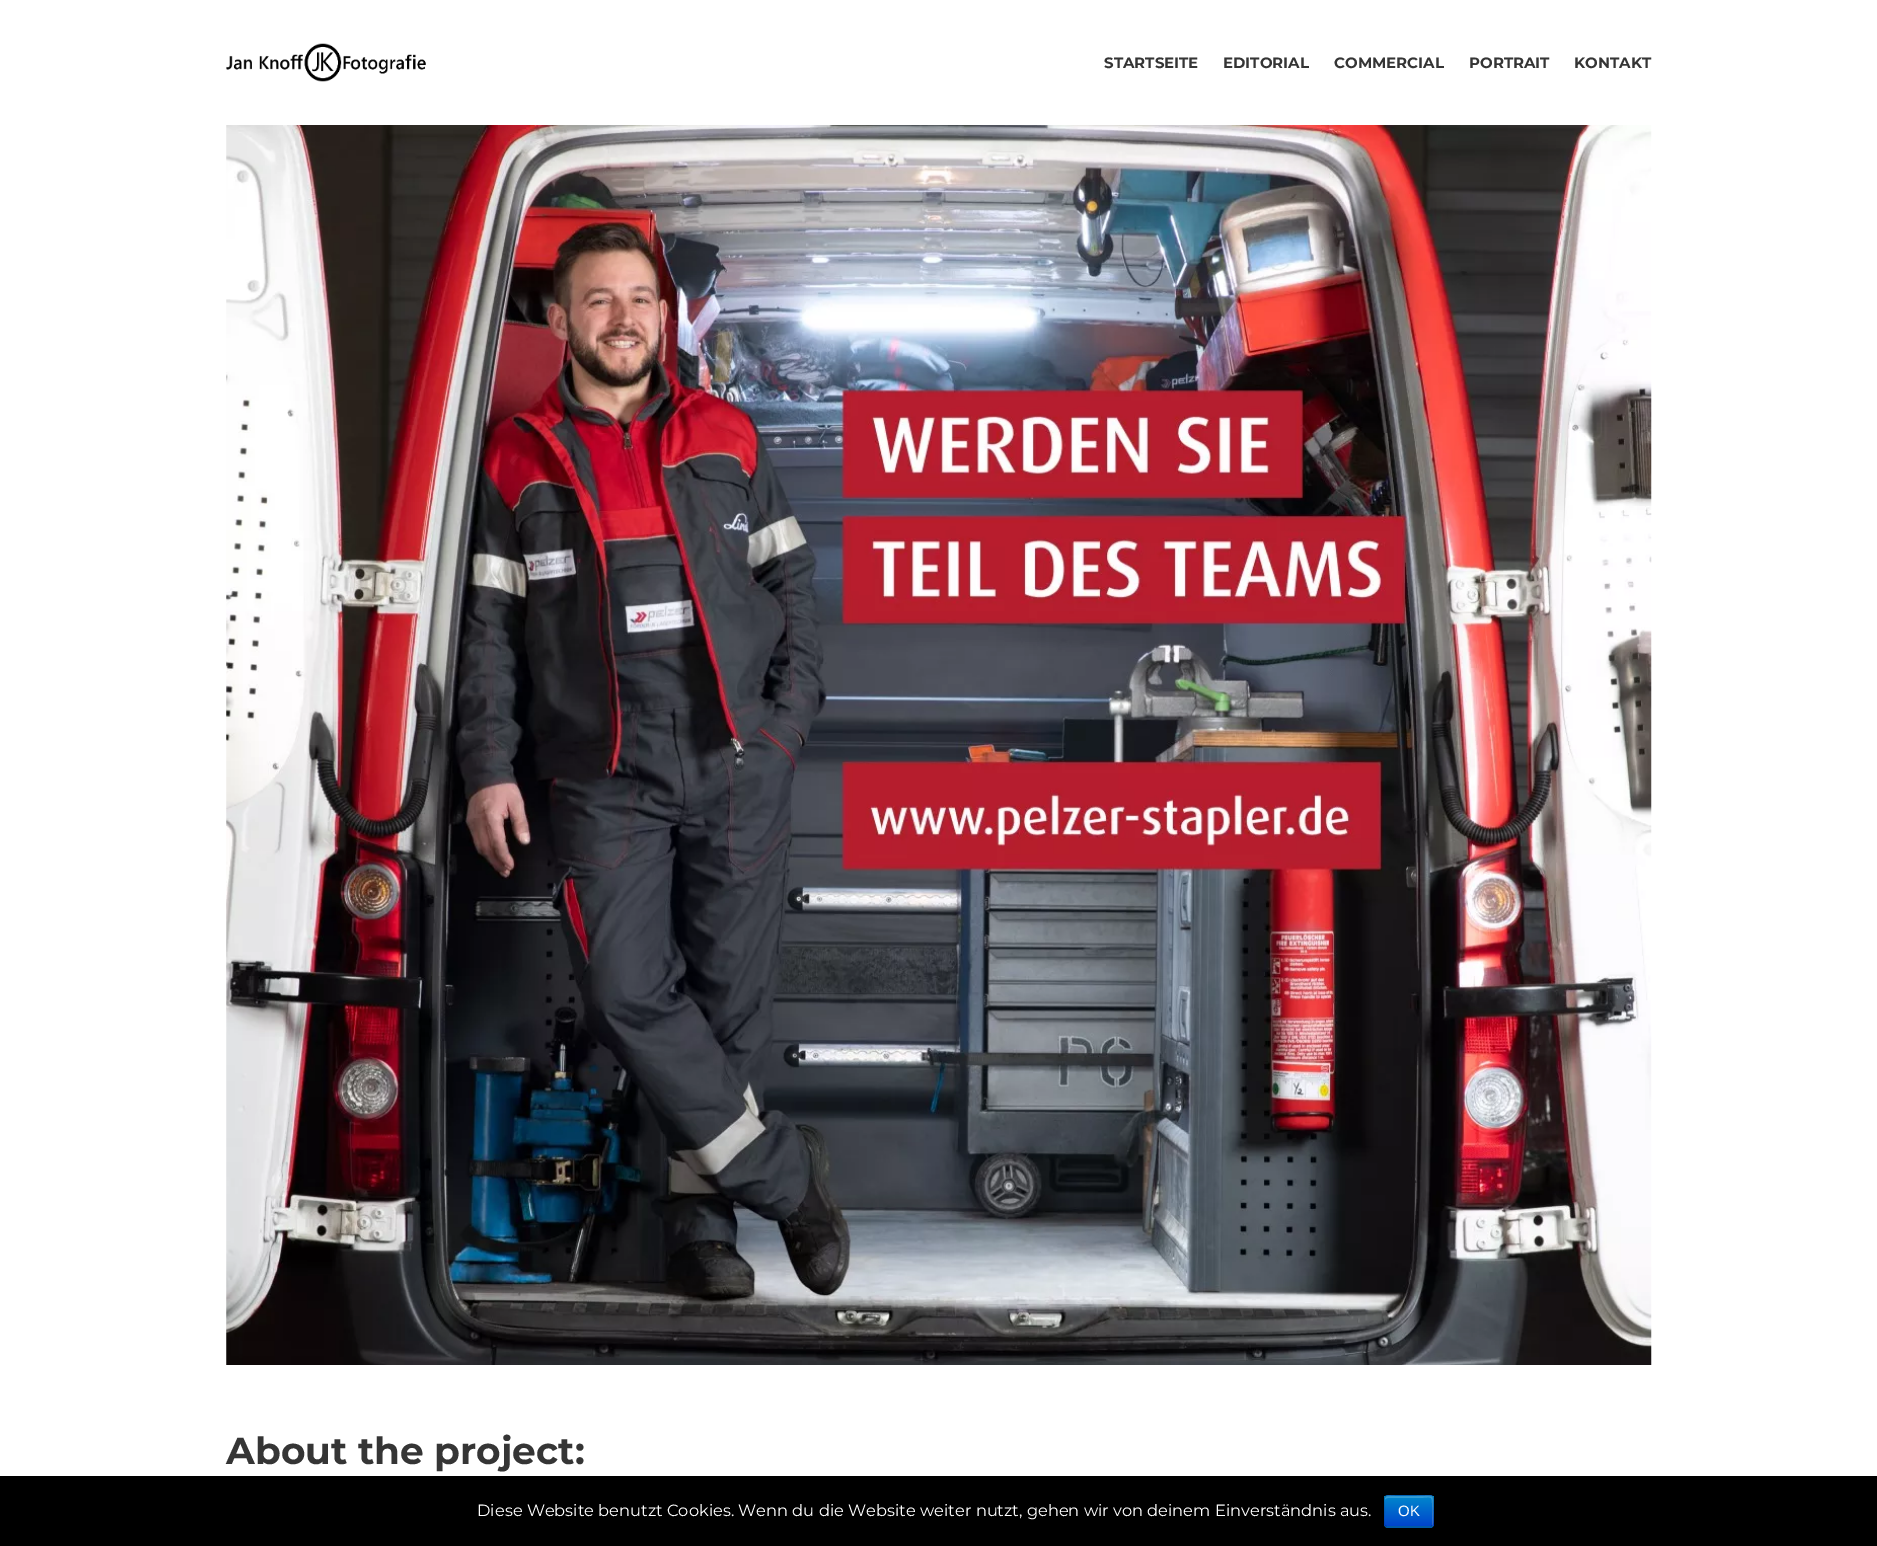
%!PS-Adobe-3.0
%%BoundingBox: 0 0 1877 1546
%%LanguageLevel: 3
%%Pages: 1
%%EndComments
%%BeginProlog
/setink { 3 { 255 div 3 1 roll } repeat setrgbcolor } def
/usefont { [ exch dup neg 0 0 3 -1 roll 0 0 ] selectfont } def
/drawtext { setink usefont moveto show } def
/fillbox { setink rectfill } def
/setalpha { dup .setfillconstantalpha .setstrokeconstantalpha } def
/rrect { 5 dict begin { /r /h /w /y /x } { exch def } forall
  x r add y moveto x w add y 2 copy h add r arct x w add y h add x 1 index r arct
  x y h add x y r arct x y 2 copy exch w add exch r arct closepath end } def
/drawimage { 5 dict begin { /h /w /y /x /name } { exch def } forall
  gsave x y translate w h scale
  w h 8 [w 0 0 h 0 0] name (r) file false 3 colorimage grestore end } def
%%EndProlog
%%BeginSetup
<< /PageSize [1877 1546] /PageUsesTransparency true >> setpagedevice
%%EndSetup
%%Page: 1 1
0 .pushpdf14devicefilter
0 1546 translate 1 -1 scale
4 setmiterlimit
0 0 1877 1546 255 255 255 fillbox
(assets/img1.rgb) 226 43 200 39 drawimage
(STARTSEITE) 1104 68 /Montserrat-Bold 15 53 53 53 drawtext
(EDITORIAL) 1223 68 /Montserrat-Bold 15 53 53 53 drawtext
(COMMERCIAL) 1334 68 /Montserrat-Bold 15 53 53 53 drawtext
(PORTRAIT) 1469 68 /Montserrat-Bold 15 53 53 53 drawtext
(KONTAKT) 1574 68 /Montserrat-Bold 15 53 53 53 drawtext
(assets/img2.rgb) 226 125 1426 1240 drawimage
(About the project:) 226 1464 /Montserrat-Bold 37.5 53 53 53 drawtext
0 1476 1877 70 0 0 0 fillbox
(Diese Website benutzt Cookies. Wenn du die Website weiter nutzt, gehen wir von deinem Einverständnis aus.) 477 1516 /Montserrat-Regular 16.25 255 255 255 drawtext
0 109 204 setink
1384 1495 50 33 4 rrect fill
gsave
1384 1495 50 33 4 rrect clip newpath
gsave 1384 1496 moveto 1434 1496 lineto 1434 1526 lineto 1384 1526 lineto closepath clip newpath
<< /ShadingType 2 /ColorSpace /DeviceRGB /Coords [1409 1496 1409 1526] /Extend [true true] /Function << /FunctionType 2 /Domain [0 1] /C0 [0 0.533 0.8] /C1 [0 0.267 0.8] /N 1 >> >> shfill grestore
grestore
0.2 setalpha
255 255 255 setink
1388 1498 moveto 1416 1498 lineto 1433 1498 1432 1494 1432 1508 curveto 1432 1526 lineto 1434 1524 1433 1514 1433 1511 curveto 1433 1492 1436 1496 1416 1496 curveto 1395 1496 lineto 1390 1496 1385 1494 1385 1500 curveto 1385 1499 1386 1498 1388 1498 curveto closepath fill
0.25 setalpha
0 0 0 setink
1.2 setlinewidth
1432 1526 moveto 1430.5 1527 lineto 1387 1527 lineto 1385.5 1526 lineto stroke
0.1 setalpha
1385.5 1526 moveto 1383 1524 1384.5 1514 1384.5 1511 curveto 1384.5 1496 1381 1495.5 1394.5 1495.5 curveto 1423 1495.5 lineto 1436.5 1495.5 1433 1496 1433 1511 curveto 1433 1514 1434.5 1524 1432 1526 curveto stroke
1 setalpha
(OK) 1398 1516 /LiberationSans-Regular 15 255 255 255 drawtext
.poppdf14devicefilter showpage
%%EOF
